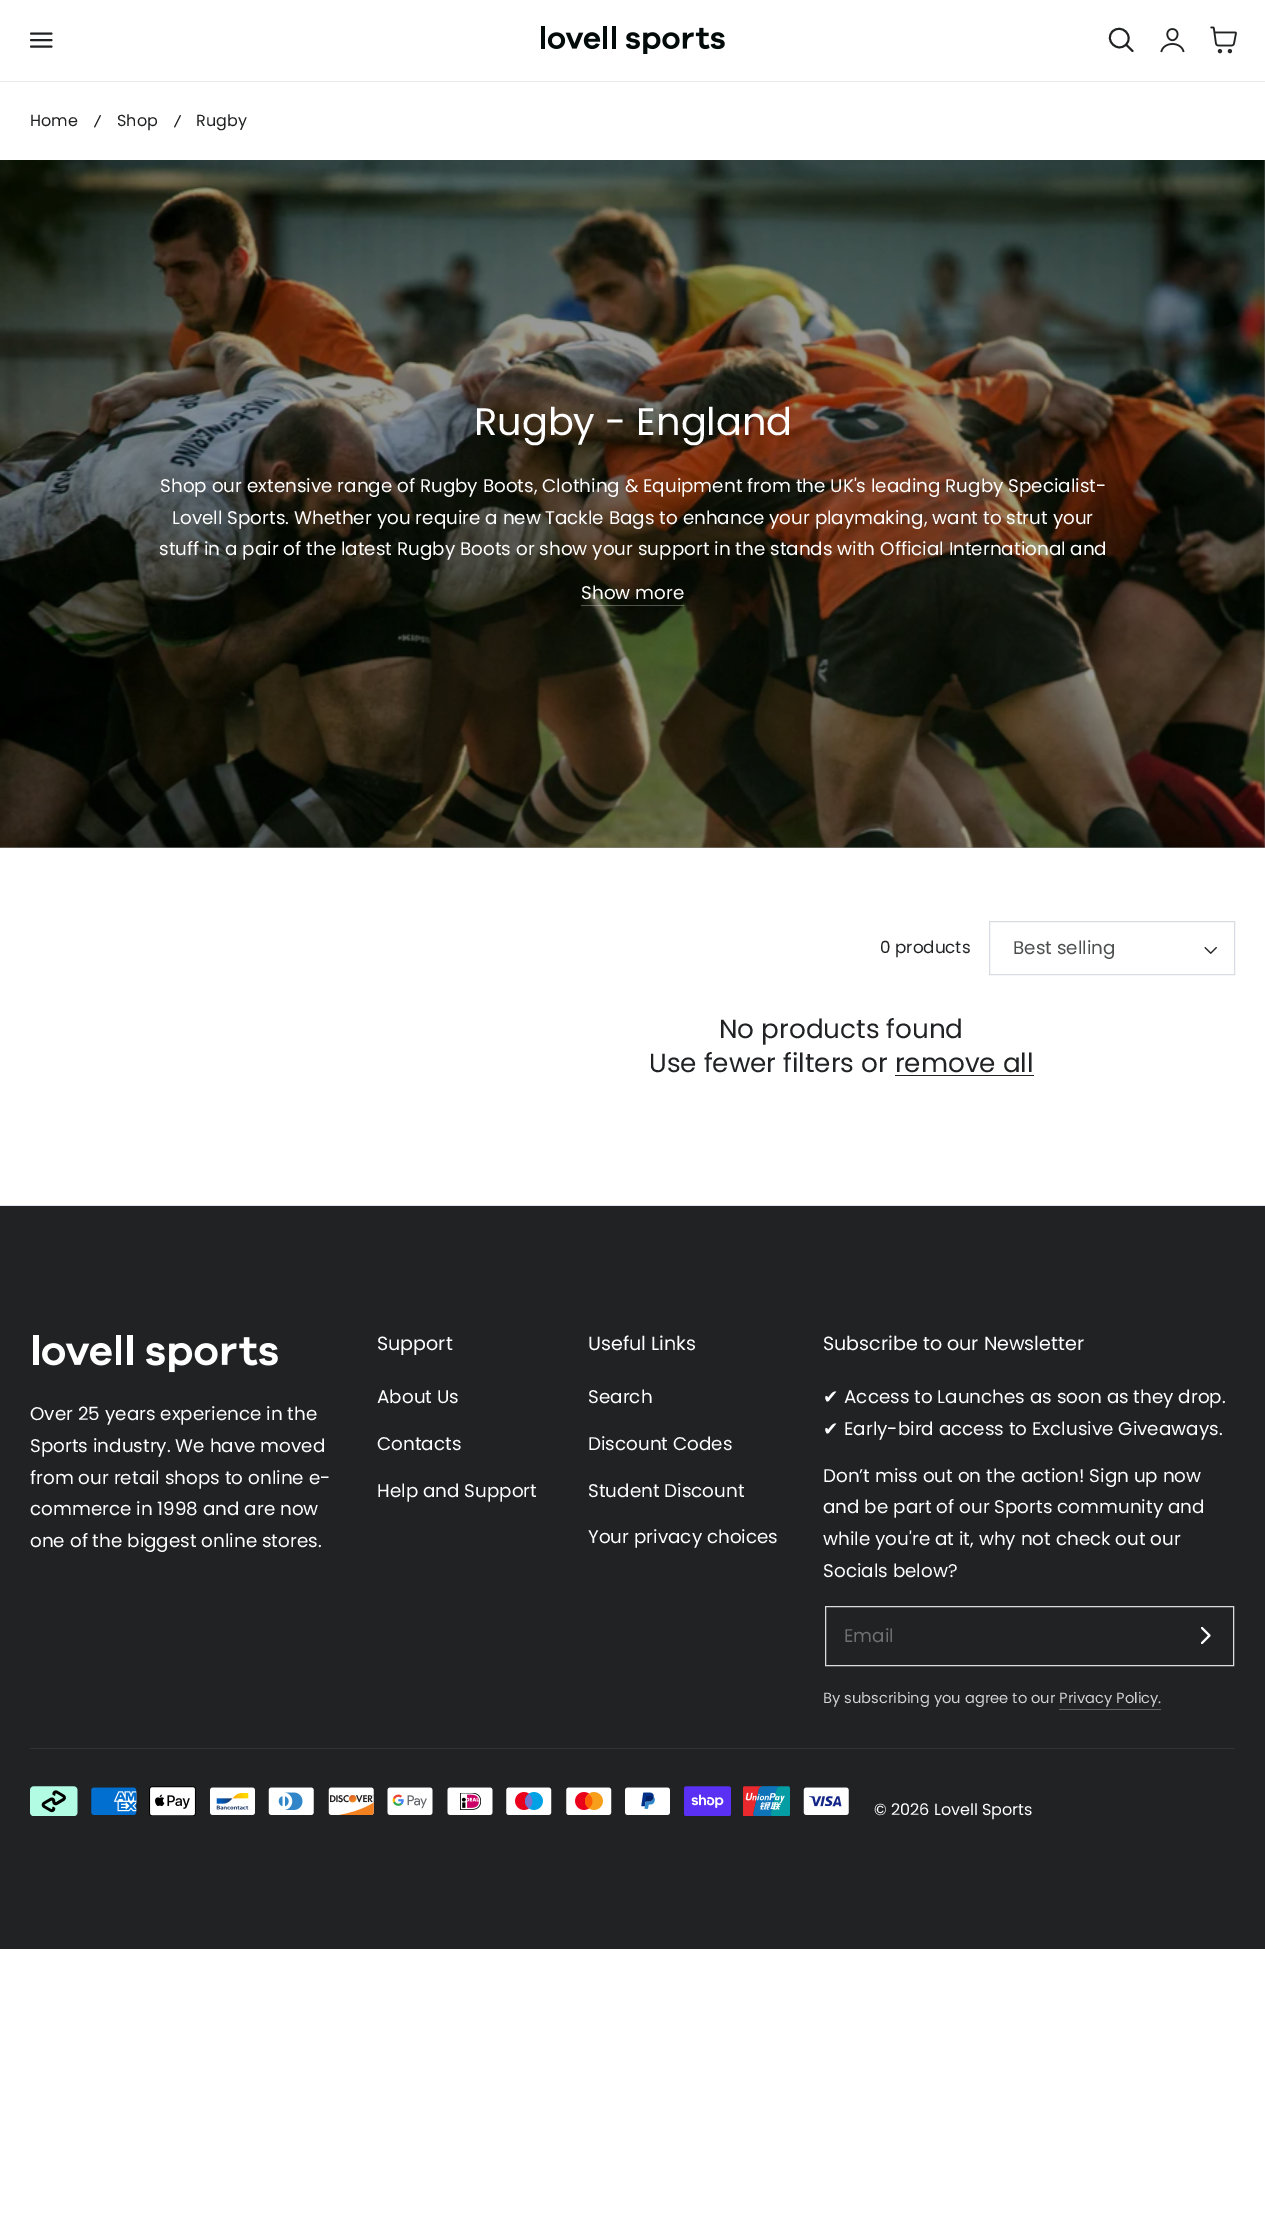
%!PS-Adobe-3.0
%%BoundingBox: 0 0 1265 2220
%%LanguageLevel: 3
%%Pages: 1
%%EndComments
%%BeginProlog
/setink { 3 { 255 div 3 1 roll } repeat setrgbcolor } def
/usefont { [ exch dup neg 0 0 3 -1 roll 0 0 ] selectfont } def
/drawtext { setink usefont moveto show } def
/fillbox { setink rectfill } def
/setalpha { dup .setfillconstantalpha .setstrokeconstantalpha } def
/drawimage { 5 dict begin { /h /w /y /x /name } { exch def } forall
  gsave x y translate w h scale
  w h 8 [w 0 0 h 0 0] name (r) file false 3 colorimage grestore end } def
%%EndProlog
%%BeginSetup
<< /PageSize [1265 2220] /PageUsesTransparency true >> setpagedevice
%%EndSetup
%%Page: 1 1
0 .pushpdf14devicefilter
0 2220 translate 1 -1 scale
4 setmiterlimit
0 0 1265 2220 255 255 255 fillbox
0 81 1265 1 233 233 233 fillbox
32 34 35 setink
1.9 setlinewidth
1 setlinecap
1 setlinejoin
31 33.5 moveto 51.5 33.5 lineto 31 40 moveto 51.5 40 lineto 31 46.5 moveto 51.5 46.5 lineto stroke
(assets/img1.rgb) 541 26 184 28 drawimage
1132.5 51 moveto 1126 44.5 lineto 1126 44.5 moveto 1134.5 36 1121.5 23 1112.5 31.5 curveto 1104 40 1117.5 53.5 1126 44.5 curveto closepath stroke
(assets/img2.rgb) 1160 28 25 25 drawimage
(assets/img3.rgb) 1210 26 27 28 drawimage
(Home) 30 126 /Poppins-Regular 16 32 34 35 drawtext
94 127 moveto 100 115 lineto 101 115.5 lineto 95 127.5 lineto closepath fill
(Shop) 117 126 /Poppins-Regular 16 32 34 35 drawtext
174 127 moveto 180 115 lineto 181 115.5 lineto 175 127.5 lineto closepath fill
(Rugby) 196 126 /Poppins-Regular 16 32 34 35 drawtext
0 160 1265 688 140 140 140 fillbox
(assets/img4.rgb) 0 160 1265 688 drawimage
(Rugby - England) 474 435 /Poppins-Regular 38.25 255 255 255 drawtext
(Shop our extensive range of Rugby Boots, Clothing & Equipment from the UK's leading Rugby Specialist-) 160 492 /Poppins-Regular 18.35 255 255 255 drawtext
(Lovell Sports. Whether you require a new) 172 524 /Poppins-Regular 18.35 255 255 255 drawtext
(Tackle Bags to enhance your playmaking, want to strut your) 545 524 /Poppins-Regular 18.35 255 255 255 drawtext
(stuff in a pair of the latest Rugby Boots or show your support in the stands with Official International and) 159 555 /Poppins-Regular 18.35 255 255 255 drawtext
(Show more) 581 599 /Poppins-Regular 18.35 255 255 255 drawtext
0.3 setalpha
581 605 103 1 255 255 255 fillbox
1 setalpha
(0 products) 880 953 /Poppins-Regular 16.75 32 34 35 drawtext
216 220 229 setink
1 setlinewidth
0 setlinecap
0 setlinejoin
989.5 921.5 245 53 rectstroke
(Best selling) 1013 954 /Poppins-Regular 18.35 77 78 79 drawtext
(assets/img5.rgb) 1204 947 13 7 drawimage
(No products found) 719 1038 /Poppins-Regular 26.25 32 34 35 drawtext
(Use fewer filters or remove all) 649 1072 /Poppins-Regular 26.25 32 34 35 drawtext
895 1075 139 1 32 34 35 fillbox
0 1205 1265 1 224 230 244 fillbox
0 1206 1265 743 32 34 35 fillbox
(assets/img6.rgb) 33 1335 245 38 drawimage
(Over 25 years experience in the) 30 1420 /Poppins-Regular 18.35 255 255 255 drawtext
(Sports industry. We have moved) 30 1452 /Poppins-Regular 18.35 255 255 255 drawtext
(from our retail shops to online e-) 30 1484 /Poppins-Regular 18.35 255 255 255 drawtext
(commerce in 1998 and are now) 30 1515 /Poppins-Regular 18.35 255 255 255 drawtext
(one of the biggest online stores.) 30 1547 /Poppins-Regular 18.35 255 255 255 drawtext
(Support) 377 1350 /Poppins-Regular 19.1 255 255 255 drawtext
(About Us) 377 1403 /Poppins-Regular 18.35 255 255 255 drawtext
(Contacts) 377 1450 /Poppins-Regular 18.35 255 255 255 drawtext
(Help and Support) 377 1497 /Poppins-Regular 18.35 255 255 255 drawtext
(Useful Links) 588 1350 /Poppins-Regular 19.1 255 255 255 drawtext
(Search) 588 1403 /Poppins-Regular 18.35 255 255 255 drawtext
(Discount Codes) 588 1450 /Poppins-Regular 18.35 255 255 255 drawtext
(Student Discount) 588 1497 /Poppins-Regular 18.35 255 255 255 drawtext
(Your privacy choices) 588 1543 /Poppins-Regular 18.35 255 255 255 drawtext
(Subscribe to our Newsletter) 823 1350 /Poppins-Regular 19.1 255 255 255 drawtext
(✔) 823 1403 /DejaVuSans-Regular 18.35 255 255 255 drawtext
(Access to Launches as soon as they drop.) 844 1403 /Poppins-Regular 18.35 255 255 255 drawtext
(✔) 823 1435 /DejaVuSans-Regular 18.35 255 255 255 drawtext
(Early-bird access to Exclusive Giveaways.) 844 1435 /Poppins-Regular 18.35 255 255 255 drawtext
(Don’t miss out on the action! Sign up now) 823 1482 /Poppins-Regular 18.35 255 255 255 drawtext
(and be part of our Sports community and) 823 1513 /Poppins-Regular 18.35 255 255 255 drawtext
(while you're at it, why not check out our) 823 1545 /Poppins-Regular 18.35 255 255 255 drawtext
(Socials below?) 823 1577 /Poppins-Regular 18.35 255 255 255 drawtext
221 221 221 setink
825.5 1606.5 408 59 rectstroke
(Email) 844 1642 /Poppins-Regular 18.35 110 111 112 drawtext
255 255 255 setink
2 setlinewidth
1 setlinecap
1 setlinejoin
1202 1628 moveto 1209.5 1635.5 lineto 1202 1643 lineto stroke
(By subscribing you agree to our Privacy Policy.) 823 1703 /Poppins-Regular 14.7 210 211 211 drawtext
1059 1709 102 1 99 100 101 fillbox
30 1748 1205 1 51 51 51 fillbox
(assets/img7.rgb) 30 1786 48 30 drawimage
(assets/img8.rgb) 91 1787 46 28 drawimage
(assets/img9.rgb) 149 1786 47 30 drawimage
(assets/img10.rgb) 210 1787 45 28 drawimage
(assets/img11.rgb) 268 1787 46 28 drawimage
(assets/img12.rgb) 328 1787 46 28 drawimage
(assets/img13.rgb) 387 1787 46 28 drawimage
(assets/img14.rgb) 447 1787 46 28 drawimage
(assets/img15.rgb) 506 1787 46 28 drawimage
(assets/img16.rgb) 566 1787 46 28 drawimage
(assets/img17.rgb) 625 1787 45 28 drawimage
(assets/img18.rgb) 684 1786 47 30 drawimage
(assets/img19.rgb) 743 1786 47 30 drawimage
(assets/img20.rgb) 803 1787 46 28 drawimage
(© 2026 Lovell Sports) 874 1815 /Poppins-Regular 16 255 255 255 drawtext
.poppdf14devicefilter showpage
%%EOF
